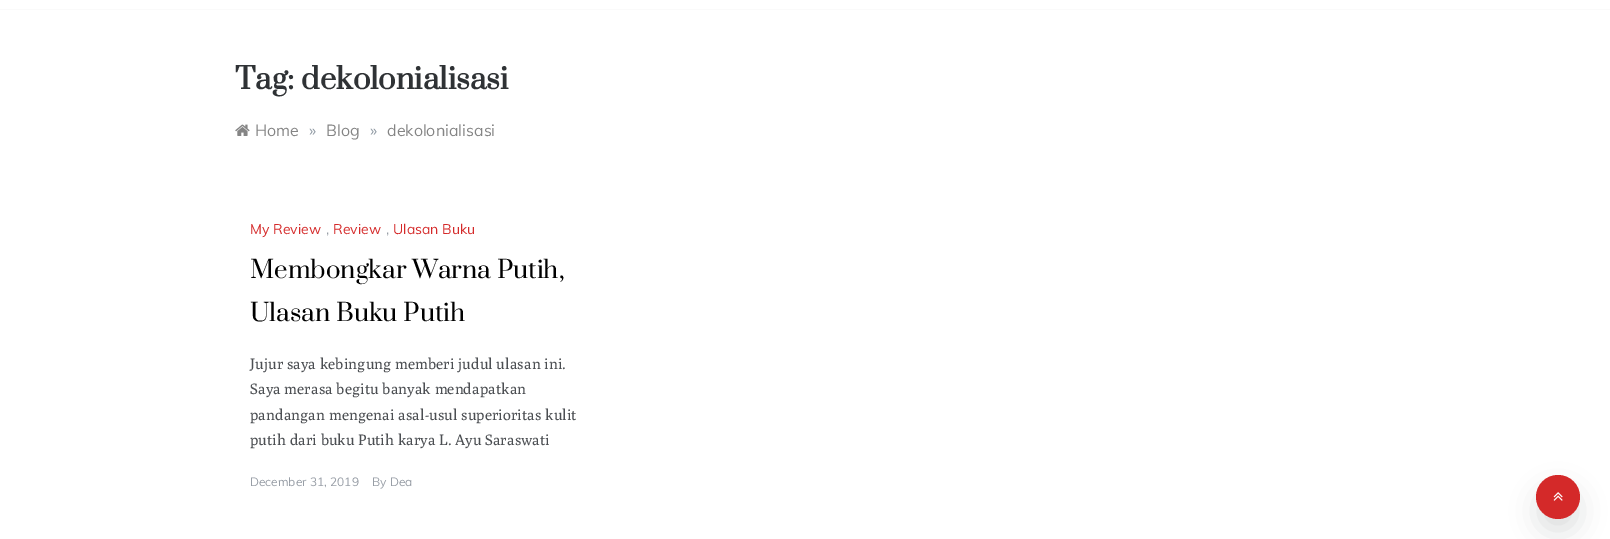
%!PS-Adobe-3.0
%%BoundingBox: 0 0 1610 539
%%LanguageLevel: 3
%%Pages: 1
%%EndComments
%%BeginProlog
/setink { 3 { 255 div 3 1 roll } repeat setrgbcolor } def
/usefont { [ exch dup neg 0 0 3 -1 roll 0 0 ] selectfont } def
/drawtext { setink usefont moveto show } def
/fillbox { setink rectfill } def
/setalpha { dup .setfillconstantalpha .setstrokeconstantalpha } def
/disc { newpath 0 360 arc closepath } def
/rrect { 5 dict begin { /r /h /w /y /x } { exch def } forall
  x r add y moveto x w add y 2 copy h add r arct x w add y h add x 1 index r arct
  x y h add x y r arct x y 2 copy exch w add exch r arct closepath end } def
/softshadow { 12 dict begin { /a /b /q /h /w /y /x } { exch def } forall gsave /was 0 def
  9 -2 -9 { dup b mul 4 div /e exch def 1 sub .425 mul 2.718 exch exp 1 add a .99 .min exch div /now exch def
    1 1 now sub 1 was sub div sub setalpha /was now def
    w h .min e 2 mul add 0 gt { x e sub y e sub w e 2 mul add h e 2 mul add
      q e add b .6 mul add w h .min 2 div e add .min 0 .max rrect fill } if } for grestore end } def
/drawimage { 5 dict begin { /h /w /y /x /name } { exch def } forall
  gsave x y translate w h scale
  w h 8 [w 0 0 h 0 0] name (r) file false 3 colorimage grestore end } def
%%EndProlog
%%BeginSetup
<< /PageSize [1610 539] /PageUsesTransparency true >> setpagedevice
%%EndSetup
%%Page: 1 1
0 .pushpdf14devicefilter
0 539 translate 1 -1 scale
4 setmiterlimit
0 0 1610 539 255 255 255 fillbox
0 9 1610 1 250 250 250 fillbox
(Tag: dekolonialisasi) 235 89 /Prata-Bold 29 47 50 53 drawtext
(assets/img1.rgb) 235 124 15 12 drawimage
(Home) 255 136 /Muli-Regular 16 133 133 133 drawtext
(») 309 136 /Muli-Regular 16 141 151 161 drawtext
(Blog) 326 136 /Muli-Regular 16 133 133 133 drawtext
(») 370 136 /Muli-Regular 16 141 151 161 drawtext
(dekolonialisasi) 387 136 /Muli-Regular 16 133 133 133 drawtext
(My Review) 250 234 /Muli-Regular 14 212 41 41 drawtext
(,) 326 234 /Muli-Regular 14 152 158 166 drawtext
(Review) 333 234 /Muli-Regular 14 212 41 41 drawtext
(,) 386 234 /Muli-Regular 14 152 158 166 drawtext
(Ulasan Buku) 393 234 /Muli-Regular 14 212 41 41 drawtext
(Membongkar Warna Putih,) 250 278 /Prata-Regular 24 0 0 0 drawtext
(Ulasan Buku Putih) 250 321 /Prata-Regular 24 0 0 0 drawtext
(Jujur saya kebingung memberi judul ulasan ini.) 250 369 /Poly-Regular 15 76 79 83 drawtext
(Saya merasa begitu banyak mendapatkan) 250 394 /Poly-Regular 15 76 79 83 drawtext
(pandangan mengenai asal-usul superioritas kulit) 250 420 /Poly-Regular 15 76 79 83 drawtext
(putih dari buku Putih karya L. Ayu Saraswati) 250 445 /Poly-Regular 15 76 79 83 drawtext
(December 31, 2019) 250 486 /Muli-Regular 12 152 158 166 drawtext
(By Dea) 372 486 /Muli-Regular 12 152 158 166 drawtext
14 17 20 setink
1540 493 36 36 18 14 0.15 softshadow
212 41 41 setink
1558 497 22 disc fill
(assets/img2.rgb) 1553 492 10 9 drawimage
.poppdf14devicefilter showpage
%%EOF
